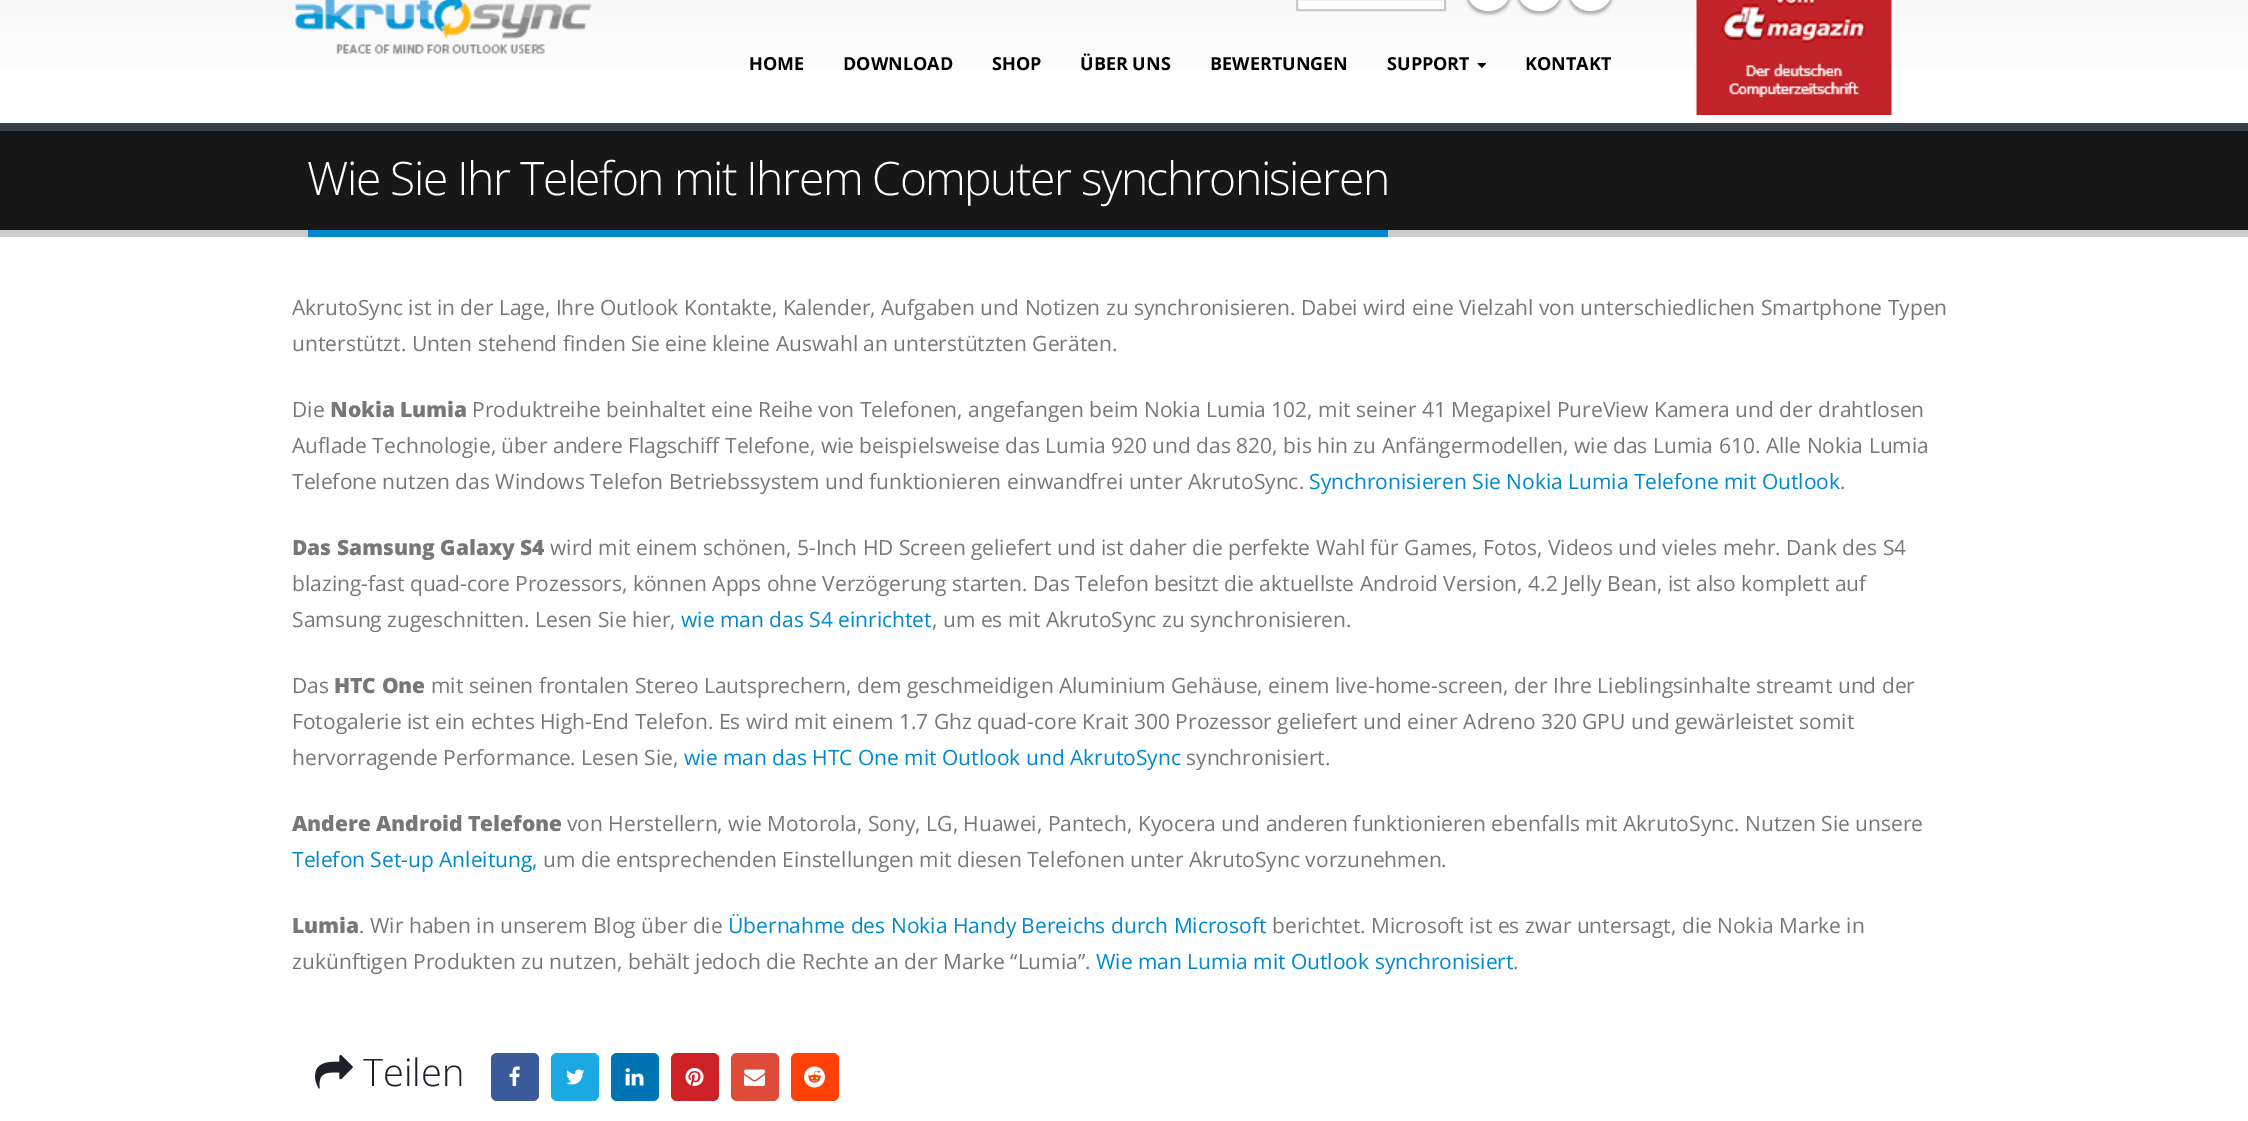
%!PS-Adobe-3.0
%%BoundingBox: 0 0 2248 1121
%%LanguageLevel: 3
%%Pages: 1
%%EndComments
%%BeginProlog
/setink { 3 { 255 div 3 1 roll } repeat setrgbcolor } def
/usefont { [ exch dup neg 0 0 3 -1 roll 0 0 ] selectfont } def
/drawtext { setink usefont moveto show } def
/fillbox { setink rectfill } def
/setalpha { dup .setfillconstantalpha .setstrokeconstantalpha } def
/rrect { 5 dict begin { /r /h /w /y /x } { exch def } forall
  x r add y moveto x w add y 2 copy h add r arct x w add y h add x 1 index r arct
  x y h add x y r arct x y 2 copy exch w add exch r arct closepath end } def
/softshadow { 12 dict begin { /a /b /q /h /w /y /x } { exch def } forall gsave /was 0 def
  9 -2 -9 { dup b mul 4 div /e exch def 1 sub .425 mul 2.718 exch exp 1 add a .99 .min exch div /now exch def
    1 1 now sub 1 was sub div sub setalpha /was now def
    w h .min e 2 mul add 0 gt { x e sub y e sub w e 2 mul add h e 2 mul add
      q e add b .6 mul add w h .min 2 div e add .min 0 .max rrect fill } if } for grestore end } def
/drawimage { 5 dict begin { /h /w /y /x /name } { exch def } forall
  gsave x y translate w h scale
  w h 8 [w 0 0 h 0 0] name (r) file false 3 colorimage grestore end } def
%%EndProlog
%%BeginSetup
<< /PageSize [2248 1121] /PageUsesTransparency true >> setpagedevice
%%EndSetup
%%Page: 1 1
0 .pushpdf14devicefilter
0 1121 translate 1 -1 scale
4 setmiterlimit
0 0 2248 1121 255 255 255 fillbox
gsave 0 0 moveto 2248 0 lineto 2248 69 lineto 0 69 lineto closepath clip newpath
<< /ShadingType 2 /ColorSpace /DeviceRGB /Coords [1124 -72 1124 123] /Extend [true true] /Function << /FunctionType 2 /Domain [0 1] /C0 [0.965 0.965 0.965] /C1 [1 1 1] /N 1 >> >> shfill grestore
(assets/img1.rgb) 295 0 297 55 drawimage
1297 -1 moveto 1445 -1 lineto 1445 10 lineto 1297 10 lineto closepath gsave fill grestore
202 202 202 setink
2 setlinewidth
stroke
0 0 0 setink
1466 -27 45 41 22.5 1.5 0.3 softshadow
255 255 255 setink
1466 -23 45 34 22.5 rrect fill
0 0 0 setink
1517 -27 45 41 22.5 1.5 0.3 softshadow
255 255 255 setink
1517 -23 45 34 22.5 rrect fill
0 0 0 setink
1568 -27 45 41 22.5 1.5 0.3 softshadow
255 255 255 setink
1568 -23 45 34 22.5 rrect fill
(assets/img2.rgb) 1696 0 196 115 drawimage
(HOME) 749 70 /OpenSans-Bold 18 0 0 0 drawtext
(DOWNLOAD) 843 70 /OpenSans-Bold 18 0 0 0 drawtext
(SHOP) 992 70 /OpenSans-Bold 18 0 0 0 drawtext
(ÜBER UNS) 1080 70 /OpenSans-Bold 18 0 0 0 drawtext
(BEWERTUNGEN) 1210 70 /OpenSans-Bold 18 0 0 0 drawtext
(SUPPORT) 1387 70 /OpenSans-Bold 18 0 0 0 drawtext
(assets/img3.rgb) 1477 63 9 5 drawimage
(KONTAKT) 1525 70 /OpenSans-Bold 18 0 0 0 drawtext
0 131 2248 99 23 23 23 fillbox
0 123 2248 8 56 64 69 fillbox
0 230 2248 7 204 204 204 fillbox
308 230 1080 7 0 136 204 fillbox
/OpenSans-Light 46.2 usefont
255 255 255 setink
307 195 moveto -1.5 0 (Wie Sie Ihr Telefon mit Ihrem Computer synchronisieren) ashow
(AkrutoSync ist in der Lage, Ihre Outlook Kontakte, Kalender, Aufgaben und Notizen zu synchronisieren. Dabei wird eine Vielzahl von unterschiedlichen Smartphone Typen) 292 315 /OpenSans-Regular 21 119 119 119 drawtext
(unterstützt. Unten stehend finden Sie eine kleine Auswahl an unterstützten Geräten.) 292 351 /OpenSans-Regular 21 119 119 119 drawtext
(Die) 292 417 /OpenSans-Regular 21 119 119 119 drawtext
(Nokia Lumia) 330 417 /OpenSans-ExtraBold 21 119 119 119 drawtext
(Produktreihe beinhaltet eine Reihe von Telefonen, angefangen beim Nokia Lumia 102, mit seiner 41 Megapixel PureView Kamera und der drahtlosen) 472 417 /OpenSans-Regular 21 119 119 119 drawtext
(Auflade Technologie, über andere Flagschiff Telefone, wie beispielsweise das Lumia 920 und das 820, bis hin zu Anfängermodellen, wie das Lumia 610. Alle Nokia Lumia) 292 453 /OpenSans-Regular 21 119 119 119 drawtext
(Telefone nutzen das Windows Telefon Betriebssystem und funktionieren einwandfrei unter AkrutoSync.) 292 489 /OpenSans-Regular 21 119 119 119 drawtext
(Synchronisieren Sie Nokia Lumia Telefone mit Outlook) 1309 489 /OpenSans-Regular 21 0 136 204 drawtext
(.) 1840 489 /OpenSans-Regular 21 119 119 119 drawtext
(Das Samsung Galaxy S4) 292 555 /OpenSans-ExtraBold 21 119 119 119 drawtext
(wird mit einem schönen, 5-Inch HD Screen geliefert und ist daher die perfekte Wahl für Games, Fotos, Videos und vieles mehr. Dank des S4) 550 555 /OpenSans-Regular 21 119 119 119 drawtext
(blazing-fast quad-core Prozessors, können Apps ohne Verzögerung starten. Das Telefon besitzt die aktuellste Android Version, 4.2 Jelly Bean, ist also komplett auf) 292 591 /OpenSans-Regular 21 119 119 119 drawtext
(Samsung zugeschnitten. Lesen Sie hier,) 292 627 /OpenSans-Regular 21 119 119 119 drawtext
(wie man das S4 einrichtet) 681 627 /OpenSans-Regular 21 0 136 204 drawtext
(, um es mit AkrutoSync zu synchronisieren.) 932 627 /OpenSans-Regular 21 119 119 119 drawtext
(Das) 292 693 /OpenSans-Regular 21 119 119 119 drawtext
(HTC One) 334 693 /OpenSans-ExtraBold 21 119 119 119 drawtext
(mit seinen frontalen Stereo Lautsprechern, dem geschmeidigen Aluminium Gehäuse, einem live-home-screen, der Ihre Lieblingsinhalte streamt und der) 431 693 /OpenSans-Regular 21 119 119 119 drawtext
(Fotogalerie ist ein echtes High-End Telefon. Es wird mit einem 1.7 Ghz quad-core Krait 300 Prozessor geliefert und einer Adreno 320 GPU und gewärleistet somit) 292 729 /OpenSans-Regular 21 119 119 119 drawtext
(hervorragende Performance. Lesen Sie,) 292 765 /OpenSans-Regular 21 119 119 119 drawtext
(wie man das HTC One mit Outlook und AkrutoSync) 684 765 /OpenSans-Regular 21 0 136 204 drawtext
(synchronisiert.) 1186 765 /OpenSans-Regular 21 119 119 119 drawtext
(Andere Android Telefone) 292 831 /OpenSans-ExtraBold 21 119 119 119 drawtext
(von Herstellern, wie Motorola, Sony, LG, Huawei, Pantech, Kyocera und anderen funktionieren ebenfalls mit AkrutoSync. Nutzen Sie unsere) 567 831 /OpenSans-Regular 21 119 119 119 drawtext
(Telefon Set-up Anleitung,) 292 867 /OpenSans-Regular 21 0 136 204 drawtext
(um die entsprechenden Einstellungen mit diesen Telefonen unter AkrutoSync vorzunehmen.) 543 867 /OpenSans-Regular 21 119 119 119 drawtext
(Lumia) 292 933 /OpenSans-ExtraBold 21 119 119 119 drawtext
(. Wir haben in unserem Blog über die) 359 933 /OpenSans-Regular 21 119 119 119 drawtext
(Übernahme des Nokia Handy Bereichs durch Microsoft) 728 933 /OpenSans-Regular 21 0 136 204 drawtext
(berichtet. Microsoft ist es zwar untersagt, die Nokia Marke in) 1272 933 /OpenSans-Regular 21 119 119 119 drawtext
(zukünftigen Produkten zu nutzen, behält jedoch die Rechte an der Marke “Lumia”.) 292 969 /OpenSans-Regular 21 119 119 119 drawtext
(Wie man Lumia mit Outlook synchronisiert) 1096 969 /OpenSans-Regular 21 0 136 204 drawtext
(.) 1513 969 /OpenSans-Regular 21 119 119 119 drawtext
(assets/img4.rgb) 315 1055 38 34 drawimage
(Teilen) 363 1086 /OpenSans-Light 38 29 33 39 drawtext
59 90 154 setink
491 1053 48 48 6 rrect fill
(assets/img5.rgb) 509 1066 11 20 drawimage
26 169 225 setink
551 1053 48 48 6 rrect fill
(assets/img6.rgb) 566 1069 19 16 drawimage
0 115 178 setink
611 1053 48 48 6 rrect fill
(assets/img7.rgb) 625 1068 19 18 drawimage
204 33 39 setink
671 1053 48 48 6 rrect fill
(assets/img8.rgb) 685 1068 19 18 drawimage
221 75 57 setink
731 1053 48 48 6 rrect fill
(assets/img9.rgb) 744 1069 21 17 drawimage
255 65 7 setink
791 1053 48 48 6 rrect fill
(assets/img10.rgb) 804 1066 21 22 drawimage
.poppdf14devicefilter showpage
%%EOF
